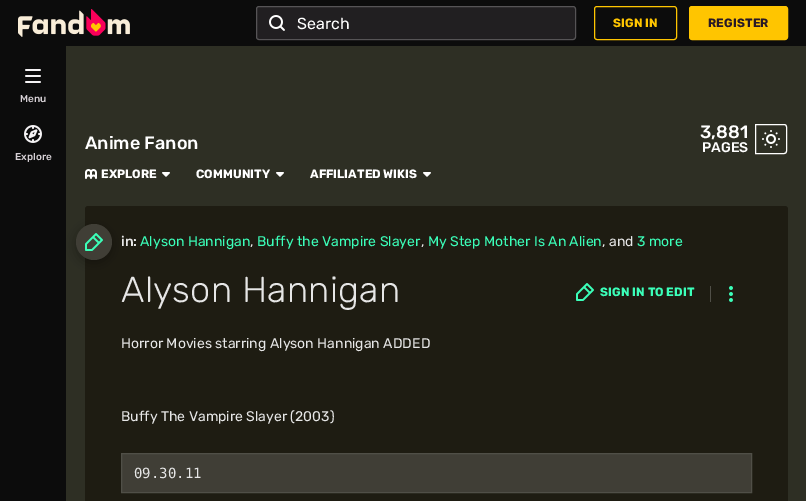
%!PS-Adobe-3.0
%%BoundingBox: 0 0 806 501
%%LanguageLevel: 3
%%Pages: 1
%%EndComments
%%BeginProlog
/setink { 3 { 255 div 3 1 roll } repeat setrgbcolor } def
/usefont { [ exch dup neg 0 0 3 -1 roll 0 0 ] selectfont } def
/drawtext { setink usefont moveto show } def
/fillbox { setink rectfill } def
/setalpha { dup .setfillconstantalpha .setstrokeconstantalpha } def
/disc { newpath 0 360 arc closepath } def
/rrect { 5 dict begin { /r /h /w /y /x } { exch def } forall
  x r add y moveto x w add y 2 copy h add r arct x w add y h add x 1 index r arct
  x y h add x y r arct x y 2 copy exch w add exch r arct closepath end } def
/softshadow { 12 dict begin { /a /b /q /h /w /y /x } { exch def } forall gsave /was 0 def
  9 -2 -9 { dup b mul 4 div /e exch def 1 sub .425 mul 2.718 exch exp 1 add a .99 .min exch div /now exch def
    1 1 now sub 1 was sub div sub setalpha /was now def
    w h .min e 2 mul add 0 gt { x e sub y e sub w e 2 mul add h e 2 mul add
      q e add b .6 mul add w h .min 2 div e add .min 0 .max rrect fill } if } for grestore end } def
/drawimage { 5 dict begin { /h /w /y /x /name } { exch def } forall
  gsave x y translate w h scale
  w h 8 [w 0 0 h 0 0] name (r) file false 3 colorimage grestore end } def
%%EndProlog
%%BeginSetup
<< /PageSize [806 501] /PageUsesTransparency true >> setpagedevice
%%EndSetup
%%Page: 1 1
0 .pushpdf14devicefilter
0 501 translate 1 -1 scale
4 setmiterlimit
0 0 806 501 46 47 36 fillbox
0 0 806 46 12 12 12 fillbox
(assets/img1.rgb) 18 9 112 28 drawimage
33 31 33 setink
256 6 320 34 3 rrect fill
0.25 setalpha
245 243 245 setink
256.5 6.5 319 33 2.5 rrect stroke
1 setalpha
(assets/img2.rgb) 269 15 16 16 drawimage
(Search) 297 29 /Rubik-Regular 16 255 255 255 drawtext
255 197 0 setink
594.5 6.5 82 33 2.5 rrect stroke
/Rubik-Bold 12 usefont
613 27 moveto 0.1 0 (SIGN IN) ashow
689.5 6.5 98 33 2.5 rrect gsave fill grestore
stroke
41 25 39 setink
708 27 moveto 0.1 0 (REGISTER) ashow
30 28 18 setink
88 206 moveto 785 206 lineto 786.5 206 788 207.5 788 209 curveto 788 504 lineto 85 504 lineto 85 209 lineto 85 207.5 86.5 206 88 206 curveto closepath fill
0 0 0 setink
76 227 36 36 18 6 0.3 softshadow
0 46 66 455 12 12 12 fillbox
(assets/img3.rgb) 25 69 16 14 drawimage
(Menu) 20 102 /Rubik-Medium 10 214 208 213 drawtext
(assets/img4.rgb) 24 125 18 18 drawimage
(Explore) 15 160 /Rubik-Medium 10 214 208 213 drawtext
(Anime Fanon) 85 149 /Rubik-Medium 18 255 255 255 drawtext
(3,881) 700 138 /Rubik-Medium 18 255 255 255 drawtext
(PAGES) 702 152 /Rubik-Medium 14 255 255 255 drawtext
755.5 124.5 moveto 784 124.5 lineto 785.5 124.5 786.5 125.5 786.5 127 curveto 786.5 151 lineto 786.5 152.5 785.5 153.5 784 153.5 curveto 755.5 153.5 lineto closepath stroke
(assets/img5.rgb) 762 130 18 18 drawimage
(assets/img6.rgb) 85 169 12 10 drawimage
(EXPLORE) 101 178 /Rubik-Bold 12 255 255 255 drawtext
(assets/img7.rgb) 162 172 8 5 drawimage
(COMMUNITY) 196 178 /Rubik-Bold 12 255 255 255 drawtext
(assets/img7.rgb) 276 172 8 5 drawimage
(AFFILIATED WIKIS) 310 178 /Rubik-Bold 12 255 255 255 drawtext
(assets/img7.rgb) 423 172 8 5 drawimage
64 62 54 setink
94 242 18 disc fill
(assets/img8.rgb) 85 233 18 18 drawimage
(in:) 121 246 /Rubik-Medium 14 230 230 230 drawtext
(Alyson Hannigan) 140 246 /Rubik-Regular 14 59 255 185 drawtext
(,) 250 246 /Rubik-Regular 14 230 230 230 drawtext
(Buffy the Vampire Slayer) 257 246 /Rubik-Regular 14 59 255 185 drawtext
(,) 421 246 /Rubik-Regular 14 230 230 230 drawtext
(My Step Mother Is An Alien) 428 246 /Rubik-Regular 14 59 255 185 drawtext
(, and) 602 246 /Rubik-Regular 14 230 230 230 drawtext
(3 more) 637 246 /Rubik-Regular 14 59 255 185 drawtext
/Rubik-Light 36 usefont
230 230 230 setink
121 302 moveto 0.25 0 (Alyson Hannigan) ashow
(assets/img9.rgb) 576 283 18 18 drawimage
/Rubik-Bold 12 usefont
59 255 185 setink
600 296 moveto 0.1 0 (SIGN IN TO EDIT) ashow
710 286 1 16 80 79 71 fillbox
(assets/img10.rgb) 729 286 4 16 drawimage
(Horror Movies starring Alyson Hannigan ADDED) 121 348 /Rubik-Regular 14 230 230 230 drawtext
(Buffy The Vampire Slayer \(2003\)) 121 421 /Rubik-Regular 14 230 230 230 drawtext
64 62 54 setink
121.5 453.5 moveto 751.5 453.5 lineto 751.5 492.5 lineto 121.5 492.5 lineto closepath gsave fill grestore
80 79 71 setink
stroke
(09.30.11) 134 478 /DejaVuSansMono-Regular 14 230 230 230 drawtext
.poppdf14devicefilter showpage
%%EOF
